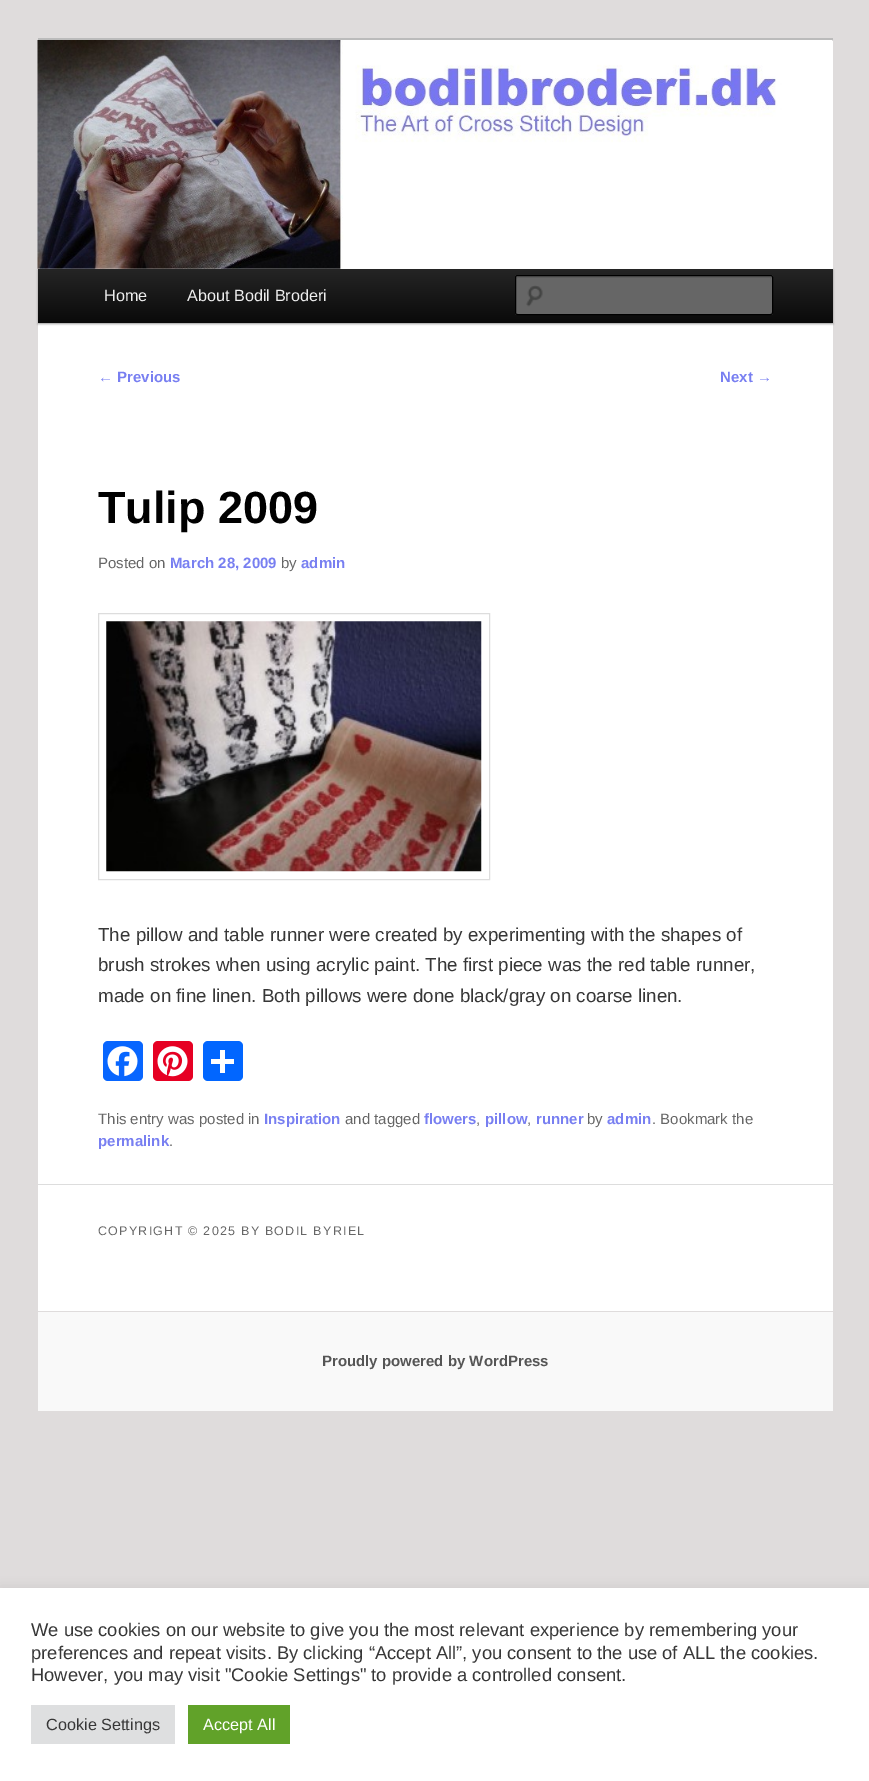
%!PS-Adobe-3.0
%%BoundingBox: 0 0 869 1781
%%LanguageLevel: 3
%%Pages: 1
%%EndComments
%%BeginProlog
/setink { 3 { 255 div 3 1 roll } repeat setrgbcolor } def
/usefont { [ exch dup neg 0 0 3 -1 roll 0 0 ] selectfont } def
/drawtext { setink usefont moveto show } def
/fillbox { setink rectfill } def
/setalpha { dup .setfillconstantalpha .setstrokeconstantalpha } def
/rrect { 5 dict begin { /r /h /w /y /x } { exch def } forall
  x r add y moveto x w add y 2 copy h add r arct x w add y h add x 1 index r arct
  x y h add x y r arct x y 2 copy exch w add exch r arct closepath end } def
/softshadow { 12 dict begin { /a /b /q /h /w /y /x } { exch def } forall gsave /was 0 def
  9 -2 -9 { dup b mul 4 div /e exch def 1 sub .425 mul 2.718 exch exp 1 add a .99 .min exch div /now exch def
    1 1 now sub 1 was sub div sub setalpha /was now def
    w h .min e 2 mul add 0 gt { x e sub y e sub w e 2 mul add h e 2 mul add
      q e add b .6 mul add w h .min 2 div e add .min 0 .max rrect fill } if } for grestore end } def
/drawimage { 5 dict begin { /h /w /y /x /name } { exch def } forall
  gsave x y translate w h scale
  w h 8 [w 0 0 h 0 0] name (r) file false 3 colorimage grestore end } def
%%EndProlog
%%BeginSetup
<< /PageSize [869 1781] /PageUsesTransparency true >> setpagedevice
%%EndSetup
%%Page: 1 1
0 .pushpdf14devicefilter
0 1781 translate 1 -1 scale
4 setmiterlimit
0 0 869 1781 223 220 220 fillbox
38 41 795 1270 255 255 255 fillbox
38 38 795 3 187 187 187 fillbox
0 0 0 setink
38 270 795 54 0 1 0.4 softshadow
(assets/img1.rgb) 37 40 796 229 drawimage
gsave 38 269 moveto 833 269 lineto 833 323 lineto 38 323 lineto closepath clip newpath
<< /ShadingType 2 /ColorSpace /DeviceRGB /Coords [435 269 435 323] /Extend [true true] /Function << /FunctionType 2 /Domain [0 1] /C0 [0.145 0.145 0.145] /C1 [0.039 0.039 0.039] /N 1 >> >> shfill grestore
(Home) 104 301 /LiberationSans-Regular 16.25 238 238 238 drawtext
(About Bodil Broderi) 187 301 /LiberationSans-Regular 16.25 238 238 238 drawtext
102 102 102 setink
515 275 258 40 2.5 rrect fill
(assets/img2.rgb) 526 285 17 22 drawimage
92 92 92 setink
518 278 moveto 770 278 lineto 771 278 771 278 771 279 curveto 771 278 771 276 770 276 curveto 516 276 lineto 516 279 lineto 516 278 517 278 518 278 curveto closepath fill
0 0 0 setink
515.5 275.5 257 39 2 rrect stroke
(←) 98 382 /LiberationSans-Regular 15 120 127 241 drawtext
(Previous) 117 382 /LiberationSans-Bold 15 120 127 241 drawtext
(Next) 720 382 /LiberationSans-Bold 15 120 127 241 drawtext
(→) 757 382 /LiberationSans-Regular 15 120 127 241 drawtext
(Tulip 2009) 98 523 /LiberationSans-Bold 45 0 0 0 drawtext
(Posted on) 98 568 /LiberationSans-Regular 15 102 102 102 drawtext
(March 28, 2009) 170 568 /LiberationSans-Bold 15 120 127 241 drawtext
(by) 281 568 /LiberationSans-Regular 15 102 102 102 drawtext
(admin) 301 568 /LiberationSans-Bold 15 120 127 241 drawtext
221 221 221 setink
98.5 613.5 391 266 rectstroke
(assets/img3.rgb) 106 621 376 251 drawimage
(The pillow and table runner were created by experimenting with the shapes of) 98 941 /LiberationSans-Regular 18.75 55 55 55 drawtext
(brush strokes when using acrylic paint. The first piece was the red table runner,) 98 971 /LiberationSans-Regular 18.75 55 55 55 drawtext
(made on fine linen. Both pillows were done black/gray on coarse linen.) 98 1002 /LiberationSans-Regular 18.75 55 55 55 drawtext
8 102 255 setink
103 1041 40 40 5 rrect fill
(assets/img4.rgb) 107 1046 31 31 drawimage
230 0 35 setink
153 1041 40 40 5 rrect fill
(assets/img5.rgb) 157 1046 31 31 drawimage
1 102 255 setink
203 1041 40 40 5 rrect fill
220 1050 5 23 255 255 255 fillbox
211 1059 23 5 255 255 255 fillbox
(This entry was posted in) 98 1124 /LiberationSans-Regular 15 102 102 102 drawtext
(Inspiration) 264 1124 /LiberationSans-Bold 15 120 127 241 drawtext
(and tagged) 345 1124 /LiberationSans-Regular 15 102 102 102 drawtext
(flowers) 424 1124 /LiberationSans-Bold 15 120 127 241 drawtext
(,) 476 1124 /LiberationSans-Regular 15 102 102 102 drawtext
(pillow) 485 1124 /LiberationSans-Bold 15 120 127 241 drawtext
(,) 527 1124 /LiberationSans-Regular 15 102 102 102 drawtext
(runner) 536 1124 /LiberationSans-Bold 15 120 127 241 drawtext
(by) 587 1124 /LiberationSans-Regular 15 102 102 102 drawtext
(admin) 607 1124 /LiberationSans-Bold 15 120 127 241 drawtext
(. Bookmark the) 652 1124 /LiberationSans-Regular 15 102 102 102 drawtext
(permalink) 98 1146 /LiberationSans-Bold 15 120 127 241 drawtext
(.) 169 1146 /LiberationSans-Regular 15 102 102 102 drawtext
38 1184 795 1 221 221 221 fillbox
/LiberationSans-Regular 12.5 usefont
102 102 102 setink
98 1235 moveto 1.25 0 (COPYRIGHT © 2025 BY BODIL BYRIEL) ashow
38 1312 795 99 249 249 249 fillbox
(Proudly powered by WordPress) 322 1366 /LiberationSans-Bold 15 85 85 85 drawtext
172 171 171 setink
0 1586 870 194 0 6 0.3 softshadow
0 1588 869 193 255 255 255 fillbox
(We use cookies on our website to give you the most relevant experience by remembering your) 31 1636 /LiberationSans-Regular 18.35 55 55 55 drawtext
(preferences and repeat visits. By clicking “Accept All”, you consent to the use of ALL the cookies.) 31 1659 /LiberationSans-Regular 18.35 55 55 55 drawtext
(However, you may visit "Cookie Settings" to provide a controlled consent.) 31 1681 /LiberationSans-Regular 18.35 55 55 55 drawtext
31 1705 144 39 222 223 224 fillbox
(Cookie Settings) 46 1730 /LiberationSans-Regular 16.25 55 55 55 drawtext
188 1705 102 39 97 162 41 fillbox
(Accept All) 203 1730 /LiberationSans-Regular 16.25 255 255 255 drawtext
.poppdf14devicefilter showpage
%%EOF
